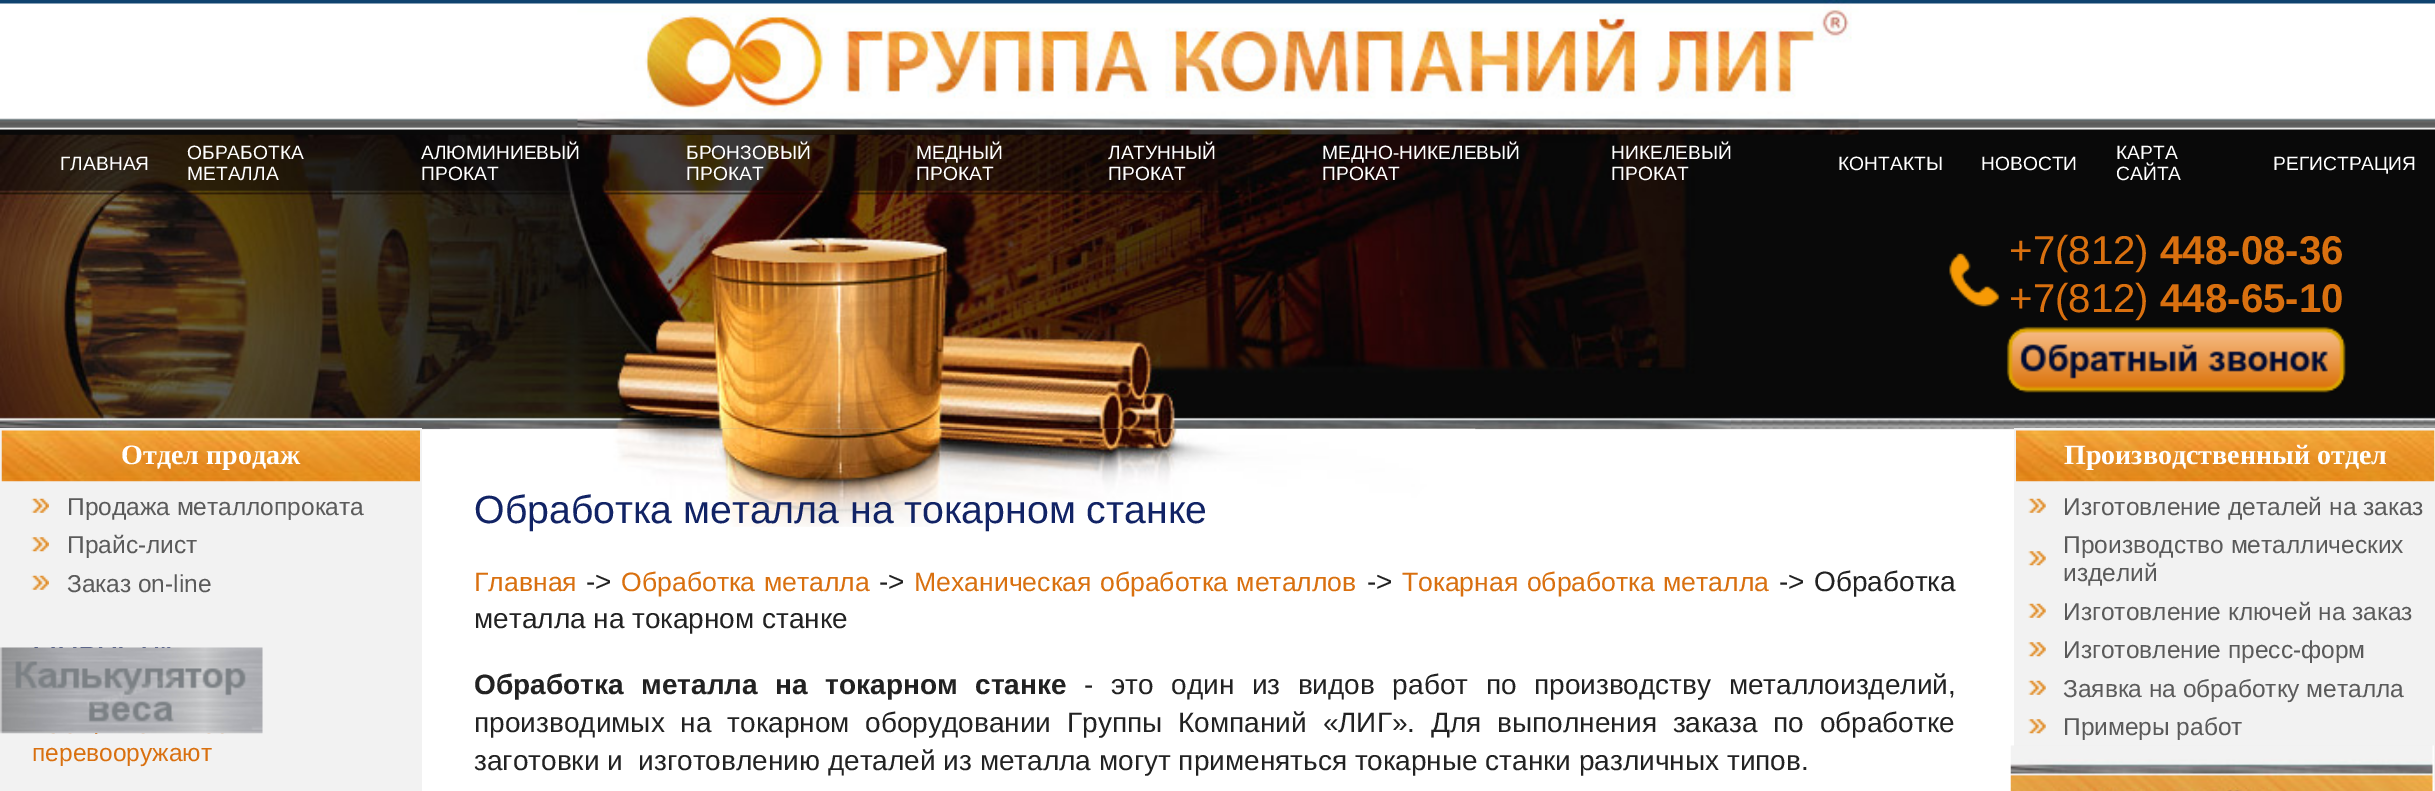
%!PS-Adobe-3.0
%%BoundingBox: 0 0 2435 791
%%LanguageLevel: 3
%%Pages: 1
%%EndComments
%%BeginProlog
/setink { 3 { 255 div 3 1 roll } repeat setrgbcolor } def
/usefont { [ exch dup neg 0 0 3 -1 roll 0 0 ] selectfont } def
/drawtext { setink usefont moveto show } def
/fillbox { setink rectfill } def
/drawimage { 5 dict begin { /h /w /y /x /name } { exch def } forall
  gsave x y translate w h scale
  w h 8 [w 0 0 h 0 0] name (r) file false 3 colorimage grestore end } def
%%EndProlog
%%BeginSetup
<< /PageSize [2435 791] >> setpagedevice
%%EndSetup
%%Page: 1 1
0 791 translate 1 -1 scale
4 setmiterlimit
0 0 2435 791 255 255 255 fillbox
(assets/img1.rgb) 0 0 2435 430 drawimage
(assets/img2.rgb) 577 0 1282 135 drawimage
(assets/img3.rgb) 0 134 2435 295 drawimage
(ГЛАВНАЯ) 60 170 /LiberationSans-Regular 19.25 255 255 255 drawtext
(ОБРАБОТКА) 187 159 /LiberationSans-Regular 19.25 255 255 255 drawtext
(МЕТАЛЛА) 187 180 /LiberationSans-Regular 19.25 255 255 255 drawtext
(АЛЮМИНИЕВЫЙ) 421 159 /LiberationSans-Regular 19.25 255 255 255 drawtext
(ПРОКАТ) 421 180 /LiberationSans-Regular 19.25 255 255 255 drawtext
(БРОНЗОВЫЙ) 686 159 /LiberationSans-Regular 19.25 255 255 255 drawtext
(ПРОКАТ) 686 180 /LiberationSans-Regular 19.25 255 255 255 drawtext
(МЕДНЫЙ) 916 159 /LiberationSans-Regular 19.25 255 255 255 drawtext
(ПРОКАТ) 916 180 /LiberationSans-Regular 19.25 255 255 255 drawtext
(ЛАТУННЫЙ) 1108 159 /LiberationSans-Regular 19.25 255 255 255 drawtext
(ПРОКАТ) 1108 180 /LiberationSans-Regular 19.25 255 255 255 drawtext
(МЕДНО-НИКЕЛЕВЫЙ) 1322 159 /LiberationSans-Regular 19.25 255 255 255 drawtext
(ПРОКАТ) 1322 180 /LiberationSans-Regular 19.25 255 255 255 drawtext
(НИКЕЛЕВЫЙ) 1611 159 /LiberationSans-Regular 19.25 255 255 255 drawtext
(ПРОКАТ) 1611 180 /LiberationSans-Regular 19.25 255 255 255 drawtext
(КОНТАКТЫ) 1838 170 /LiberationSans-Regular 19.25 255 255 255 drawtext
(НОВОСТИ) 1981 170 /LiberationSans-Regular 19.25 255 255 255 drawtext
(КАРТА) 2116 159 /LiberationSans-Regular 19.25 255 255 255 drawtext
(САЙТА) 2116 180 /LiberationSans-Regular 19.25 255 255 255 drawtext
(РЕГИСТРАЦИЯ) 2273 170 /LiberationSans-Regular 19.25 255 255 255 drawtext
0 428 422 363 242 242 242 fillbox
(assets/img4.rgb) 1 430 419 52 drawimage
(Отдел продаж) 121 464 /LiberationSerif-Bold 28 255 255 255 drawtext
(assets/img5.rgb) 31 498 18 15 drawimage
(Продажа металлопроката) 67 515 /LiberationSans-Regular 24.5 90 90 90 drawtext
(assets/img6.rgb) 31 537 18 15 drawimage
(Прайс-лист) 67 553 /LiberationSans-Regular 24.5 90 90 90 drawtext
(assets/img5.rgb) 31 575 18 15 drawimage
(Заказ on-line) 67 592 /LiberationSans-Regular 24.5 90 90 90 drawtext
(перевооружают) 32 761 /LiberationSans-Regular 24.5 217 112 15 drawtext
(assets/img7.rgb) 449 428 1027 99 drawimage
(Обработка металла на токарном станке) 474 523 /LiberationSans-Regular 39.25 17 35 101 drawtext
(Главная) 474 591 /LiberationSans-Regular 26.6 217 112 15 drawtext
(->) 586 591 /LiberationSans-Regular 28 34 34 34 drawtext
/LiberationSans-Regular 26.6 usefont
217 112 15 setink
621 591 moveto 1 0 32 (Обработка металла) widthshow
(->) 879 591 /LiberationSans-Regular 28 34 34 34 drawtext
/LiberationSans-Regular 26.6 usefont
217 112 15 setink
914 591 moveto 1 0 32 (Механическая обработка металлов) widthshow
(->) 1367 591 /LiberationSans-Regular 28 34 34 34 drawtext
/LiberationSans-Regular 26.6 usefont
217 112 15 setink
1402 591 moveto 1 0 32 (Токарная обработка металла) widthshow
(->) 1779 591 /LiberationSans-Regular 28 34 34 34 drawtext
(Обработка) 1814 591 /LiberationSans-Regular 28 34 34 34 drawtext
(металла на токарном станке) 474 628 /LiberationSans-Regular 28 34 34 34 drawtext
/LiberationSans-Bold 28 usefont
474 694 moveto 9.75 0 32 (Обработка металла на токарном станке) widthshow
/LiberationSans-Regular 28 usefont
1084 694 moveto 9.75 0 32 (- это один из видов работ по производству металлоизделий,) widthshow
474 732 moveto 8.1 0 32 (производимых на токарном оборудовании Группы Компаний «ЛИГ». Для выполнения заказа по обработке) widthshow
(заготовки и  изготовлению деталей из металла могут применяться токарные станки различных типов.) 474 770 /LiberationSans-Regular 28 34 34 34 drawtext
2014 428 421 363 242 242 242 fillbox
(assets/img8.rgb) 2016 430 419 52 drawimage
(Производственный отдел) 2064 464 /LiberationSerif-Bold 28 255 255 255 drawtext
(assets/img9.rgb) 2028 498 18 15 drawimage
(Изготовление деталей на заказ) 2063 515 /LiberationSans-Regular 24.5 90 90 90 drawtext
(assets/img10.rgb) 2028 551 18 15 drawimage
(Производство металлических) 2063 553 /LiberationSans-Regular 24.5 90 90 90 drawtext
(изделий) 2063 581 /LiberationSans-Regular 24.5 90 90 90 drawtext
(assets/img9.rgb) 2028 603 18 15 drawimage
(Изготовление ключей на заказ) 2063 620 /LiberationSans-Regular 24.5 90 90 90 drawtext
(assets/img10.rgb) 2028 642 18 15 drawimage
(Изготовление пресс-форм) 2063 658 /LiberationSans-Regular 24.5 90 90 90 drawtext
(assets/img9.rgb) 2028 680 18 15 drawimage
(Заявка на обработку металла) 2063 697 /LiberationSans-Regular 24.5 90 90 90 drawtext
(assets/img10.rgb) 2028 719 18 15 drawimage
(Примеры работ) 2063 735 /LiberationSans-Regular 24.5 90 90 90 drawtext
(assets/img11.rgb) 2010 745 424 46 drawimage
(assets/img12.rgb) 1949 253 51 54 drawimage
(+7\(812\)) 2009 264 /LiberationSans-Regular 40.25 217 112 15 drawtext
(448-08-36) 2160 264 /LiberationSans-Bold 40.25 217 112 15 drawtext
(+7\(812\)) 2009 312 /LiberationSans-Regular 40.25 217 112 15 drawtext
(448-65-10) 2160 312 /LiberationSans-Bold 40.25 217 112 15 drawtext
(assets/img13.rgb) 2006 326 340 67 drawimage
(assets/img14.rgb) 0 647 263 87 drawimage
showpage
%%EOF
